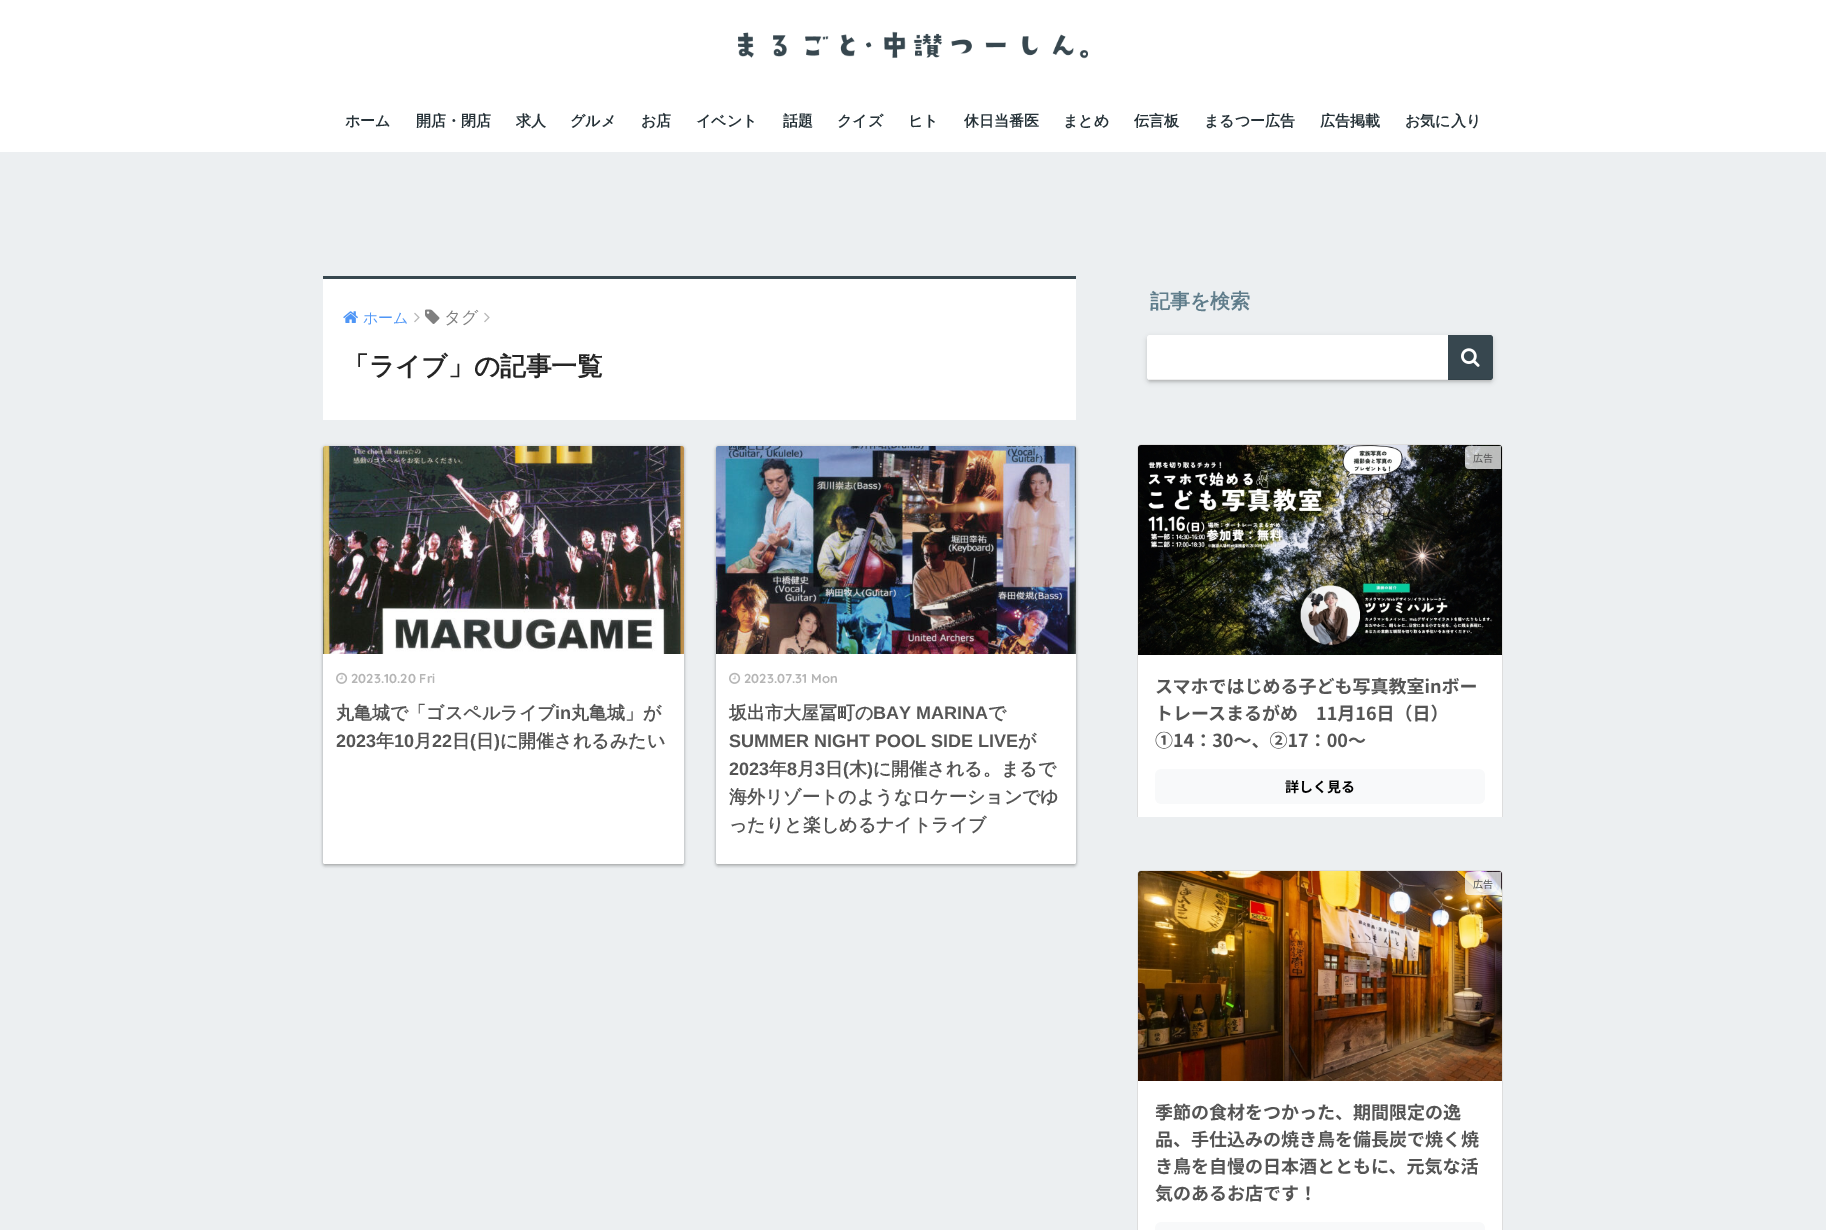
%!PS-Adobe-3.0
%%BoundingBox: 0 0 1826 1230
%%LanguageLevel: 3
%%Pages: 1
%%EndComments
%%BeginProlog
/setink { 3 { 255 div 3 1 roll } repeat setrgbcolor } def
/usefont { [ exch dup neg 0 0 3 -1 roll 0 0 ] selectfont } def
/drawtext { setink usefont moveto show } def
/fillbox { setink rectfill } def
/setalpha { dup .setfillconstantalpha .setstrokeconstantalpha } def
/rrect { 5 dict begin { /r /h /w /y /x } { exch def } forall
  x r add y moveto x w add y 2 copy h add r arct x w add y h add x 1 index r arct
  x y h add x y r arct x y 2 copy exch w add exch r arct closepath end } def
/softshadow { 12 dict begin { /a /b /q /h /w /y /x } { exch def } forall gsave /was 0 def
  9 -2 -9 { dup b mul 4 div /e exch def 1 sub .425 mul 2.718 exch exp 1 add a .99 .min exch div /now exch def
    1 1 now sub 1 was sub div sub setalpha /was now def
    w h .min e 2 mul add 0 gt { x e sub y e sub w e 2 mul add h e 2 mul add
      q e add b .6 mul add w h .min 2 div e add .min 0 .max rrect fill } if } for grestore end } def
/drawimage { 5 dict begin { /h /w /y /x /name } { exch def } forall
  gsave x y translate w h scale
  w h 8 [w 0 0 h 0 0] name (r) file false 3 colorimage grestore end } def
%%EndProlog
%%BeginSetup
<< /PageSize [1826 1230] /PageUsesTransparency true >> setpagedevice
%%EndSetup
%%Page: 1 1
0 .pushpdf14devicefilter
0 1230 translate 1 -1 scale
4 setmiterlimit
0 0 1826 1230 236 239 241 fillbox
0 0 1826 152 255 255 255 fillbox
(assets/img1.rgb) 738 31 350 28 drawimage
(ホーム) 345 126 /WenQuanYiZenHei-Bold 15 38 50 56 drawtext
(開店・閉店) 416 126 /WenQuanYiZenHei-Bold 15 38 50 56 drawtext
(求人) 516 126 /WenQuanYiZenHei-Bold 15 38 50 56 drawtext
(グルメ) 570 126 /WenQuanYiZenHei-Bold 15 38 50 56 drawtext
(お店) 641 126 /WenQuanYiZenHei-Bold 15 38 50 56 drawtext
(イベント) 696 126 /WenQuanYiZenHei-Bold 15 38 50 56 drawtext
(話題) 783 126 /WenQuanYiZenHei-Bold 15 38 50 56 drawtext
(クイズ) 837 126 /WenQuanYiZenHei-Bold 15 38 50 56 drawtext
(ヒト) 908 126 /WenQuanYiZenHei-Bold 15 38 50 56 drawtext
(休日当番医) 964 126 /WenQuanYiZenHei-Bold 15 38 50 56 drawtext
(まとめ) 1063 126 /WenQuanYiZenHei-Bold 15 38 50 56 drawtext
(伝言板) 1134 126 /WenQuanYiZenHei-Bold 15 38 50 56 drawtext
(まるつー広告) 1204 126 /WenQuanYiZenHei-Bold 15 38 50 56 drawtext
(広告掲載) 1320 126 /WenQuanYiZenHei-Bold 15 38 50 56 drawtext
(お気に入り) 1405 126 /WenQuanYiZenHei-Bold 15 38 50 56 drawtext
(記事を検索) 1150 308 /WenQuanYiZenHei-Bold 20 96 125 139 drawtext
0 0 0 setink
1149 340 342 41 1 1.5 0.15 softshadow
1147 337 346 45 3 2.5 0.15 softshadow
255 255 255 setink
1147 335 346 45 3 rrect fill
1149 379 343 1 239 239 239 fillbox
55 71 79 setink
1448 335 moveto 1490 335 lineto 1491.5 335 1493 336.5 1493 338 curveto 1493 377 lineto 1493 378.5 1491.5 380 1490 380 curveto 1448 380 lineto closepath fill
0.1 setalpha
1448 379 44 1 0 0 0 fillbox
1 setalpha
(assets/img2.rgb) 1461 348 19 19 drawimage
(assets/img3.rgb) 1137 444 366 373 drawimage
(assets/img4.rgb) 1137 870 366 360 drawimage
323 279 753 141 255 255 255 fillbox
323 276 753 3 55 71 79 fillbox
(assets/img5.rgb) 343 311 15 12 drawimage
(ホーム) 363 323 /WenQuanYiZenHei-Medium 15 79 150 246 drawtext
(assets/img6.rgb) 414 312 6 11 drawimage
(assets/img7.rgb) 425 309 15 15 drawimage
(タグ) 444 323 /WenQuanYiZenHei-Medium 17 128 128 128 drawtext
(assets/img6.rgb) 484 312 6 11 drawimage
(「ライブ」の記事一覧) 343 375 /WenQuanYiZenHei-Bold 25.75 37 37 37 drawtext
0 0 0 setink
323 448 361 418 2 1.5 0.22 softshadow
323 446 361 418 2 1.5 0.12 softshadow
255 255 255 setink
323 446 361 418 2 rrect fill
(assets/img8.rgb) 323 446 361 208 drawimage
(assets/img9.rgb) 336 672 12 12 drawimage
(2023.10.20 Fri) 351 683 /Quicksand-Bold 13 181 181 181 drawtext
(丸亀城で「ゴスペルライブ) 336 719 /WenQuanYiZenHei-Bold 18 85 85 85 drawtext
(in) 555 719 /LiberationSans-Bold 18 85 85 85 drawtext
(丸亀城」が) 571 719 /WenQuanYiZenHei-Bold 18 85 85 85 drawtext
(2023) 336 747 /LiberationSans-Bold 18 85 85 85 drawtext
(年) 376 747 /WenQuanYiZenHei-Bold 18 85 85 85 drawtext
(10) 394 747 /LiberationSans-Bold 18 85 85 85 drawtext
(月) 414 747 /WenQuanYiZenHei-Bold 18 85 85 85 drawtext
(22) 432 747 /LiberationSans-Bold 18 85 85 85 drawtext
(日) 452 747 /WenQuanYiZenHei-Bold 18 85 85 85 drawtext
(\() 470 747 /LiberationSans-Bold 18 85 85 85 drawtext
(日) 476 747 /WenQuanYiZenHei-Bold 18 85 85 85 drawtext
(\)) 494 747 /LiberationSans-Bold 18 85 85 85 drawtext
(に開催されるみたい) 500 747 /WenQuanYiZenHei-Bold 18 85 85 85 drawtext
0 0 0 setink
716 448 360 418 2 1.5 0.22 softshadow
716 446 360 418 2 1.5 0.12 softshadow
255 255 255 setink
716 446 360 418 2 rrect fill
(assets/img10.rgb) 716 446 360 208 drawimage
(assets/img9.rgb) 729 672 12 12 drawimage
(2023.07.31 Mon) 744 683 /Quicksand-Bold 13 181 181 181 drawtext
(坂出市大屋冨町の) 729 719 /WenQuanYiZenHei-Bold 18 85 85 85 drawtext
(BAY MARINA) 873 719 /LiberationSans-Bold 18 85 85 85 drawtext
(で) 988 719 /WenQuanYiZenHei-Bold 18 85 85 85 drawtext
(SUMMER NIGHT POOL SIDE LIVE) 729 747 /LiberationSans-Bold 18 85 85 85 drawtext
(が) 1018 747 /WenQuanYiZenHei-Bold 18 85 85 85 drawtext
(2023) 729 775 /LiberationSans-Bold 18 85 85 85 drawtext
(年) 769 775 /WenQuanYiZenHei-Bold 18 85 85 85 drawtext
(8) 787 775 /LiberationSans-Bold 18 85 85 85 drawtext
(月) 797 775 /WenQuanYiZenHei-Bold 18 85 85 85 drawtext
(3) 815 775 /LiberationSans-Bold 18 85 85 85 drawtext
(日) 825 775 /WenQuanYiZenHei-Bold 18 85 85 85 drawtext
(\() 843 775 /LiberationSans-Bold 18 85 85 85 drawtext
(木) 849 775 /WenQuanYiZenHei-Bold 18 85 85 85 drawtext
(\)) 867 775 /LiberationSans-Bold 18 85 85 85 drawtext
(に開催される。まるで) 873 775 /WenQuanYiZenHei-Bold 18 85 85 85 drawtext
(海外リゾートのようなロケーションでゆ) 729 803 /WenQuanYiZenHei-Bold 18 85 85 85 drawtext
(ったりと楽しめるナイトライブ) 729 831 /WenQuanYiZenHei-Bold 18 85 85 85 drawtext
.poppdf14devicefilter showpage
%%EOF
